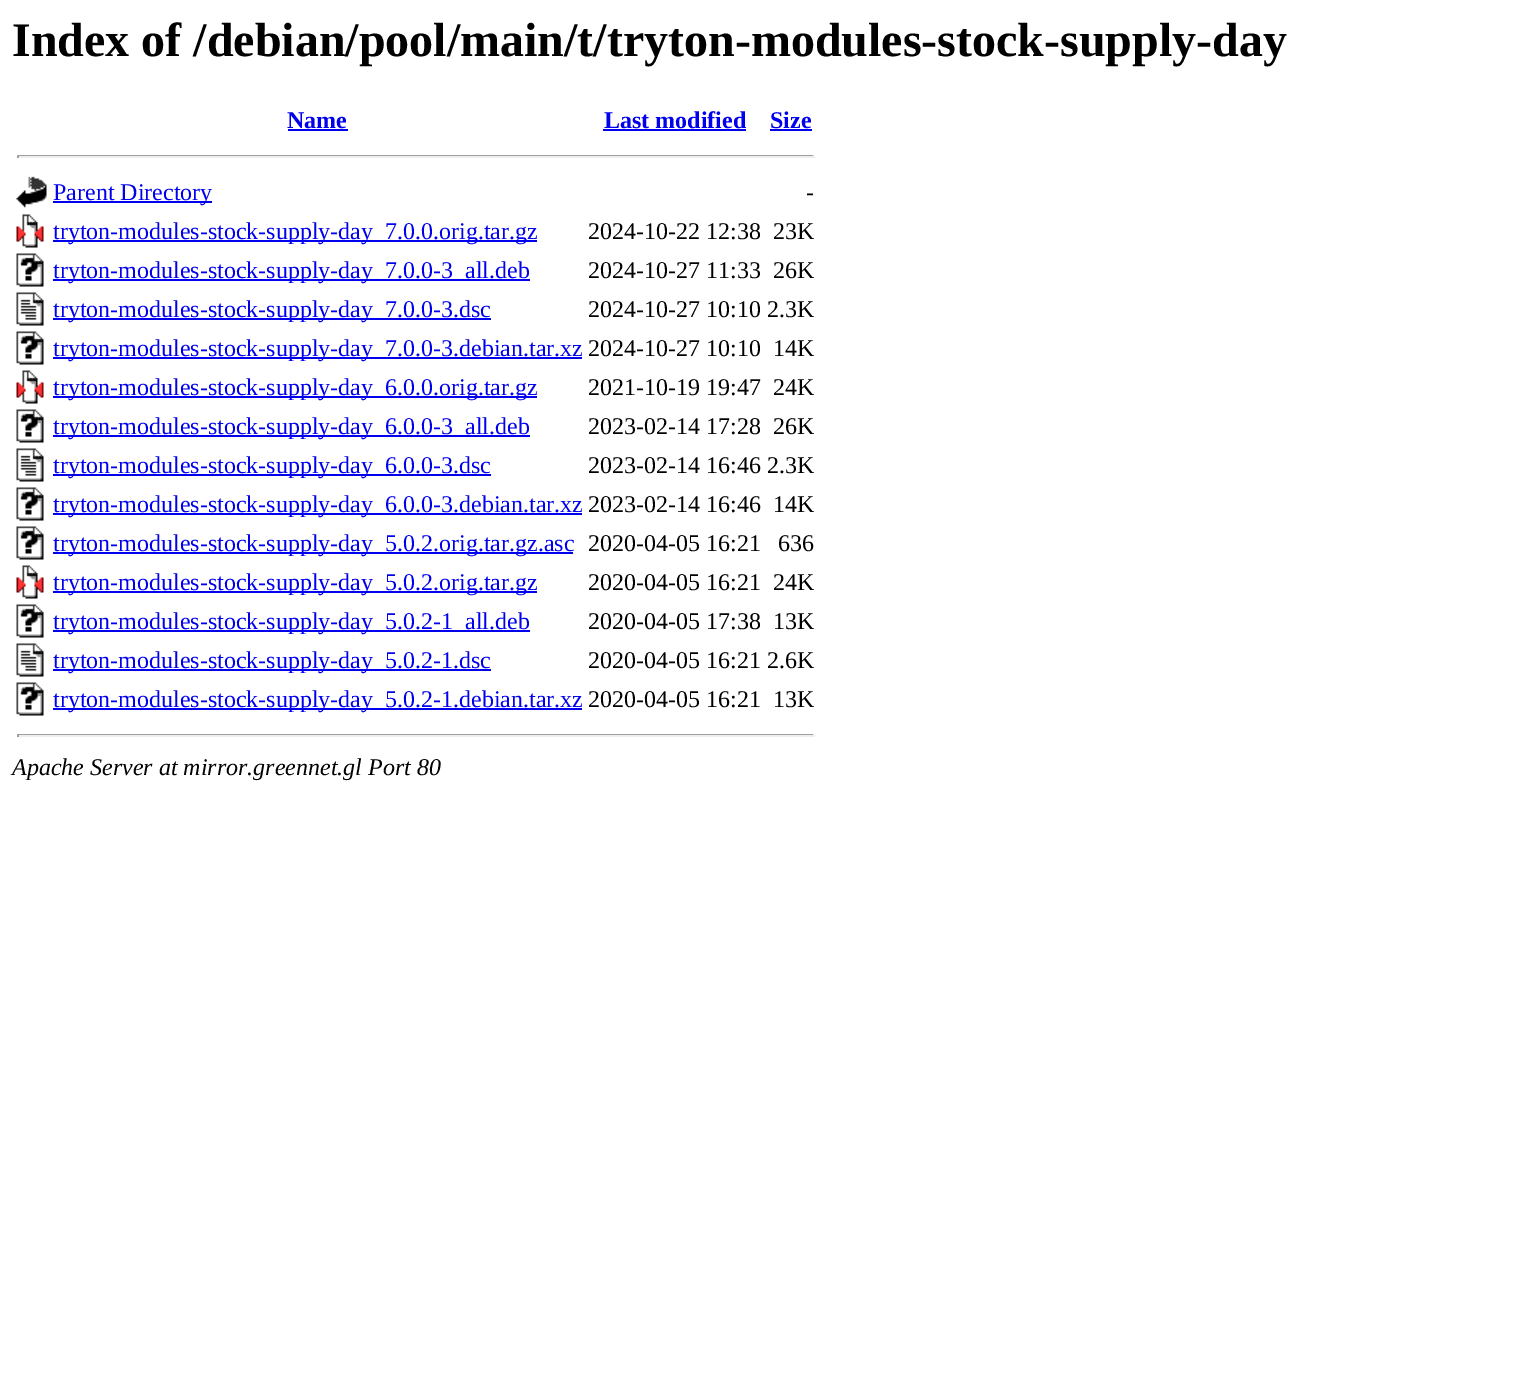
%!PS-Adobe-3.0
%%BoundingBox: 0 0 1535 1378
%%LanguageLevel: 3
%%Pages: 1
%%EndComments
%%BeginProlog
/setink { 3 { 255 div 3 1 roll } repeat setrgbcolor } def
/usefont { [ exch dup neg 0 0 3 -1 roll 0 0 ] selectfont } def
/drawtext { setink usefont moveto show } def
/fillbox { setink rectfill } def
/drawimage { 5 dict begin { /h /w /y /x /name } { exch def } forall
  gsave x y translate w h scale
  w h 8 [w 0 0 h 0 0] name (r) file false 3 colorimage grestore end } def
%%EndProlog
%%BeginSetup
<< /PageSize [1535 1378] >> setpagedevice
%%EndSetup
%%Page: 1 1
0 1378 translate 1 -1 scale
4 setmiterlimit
0 0 1535 1378 255 255 255 fillbox
(Index of /debian/pool/main/t/tryton-modules-stock-supply-day) 12 56 /LiberationSerif-Bold 48 0 0 0 drawtext
(Name) 287 128 /LiberationSerif-Bold 24 0 0 238 drawtext
288 129 60 2 0 0 238 fillbox
(Last modified) 604 128 /LiberationSerif-Bold 24 0 0 238 drawtext
603 129 143 2 0 0 238 fillbox
(Size) 770 128 /LiberationSerif-Bold 24 0 0 238 drawtext
770 129 42 2 0 0 238 fillbox
17 155 798 1 159 159 159 fillbox
813 155 2 3 238 238 238 fillbox
17 156 798 2 238 238 238 fillbox
17 155 2 3 159 159 159 fillbox
(assets/img1.rgb) 16 176 31 32 drawimage
53 201 159 2 0 0 238 fillbox
(Parent Directory) 53 200 /LiberationSerif-Regular 24 0 0 238 drawtext
(-) 806 200 /LiberationSerif-Regular 24 0 0 0 drawtext
(assets/img2.rgb) 16 214 28 34 drawimage
53 240 484 2 0 0 238 fillbox
(tryton-modules-stock-supply-day_7.0.0.orig.tar.gz) 53 239 /LiberationSerif-Regular 24 0 0 238 drawtext
(2024-10-22 12:38) 588 239 /LiberationSerif-Regular 24 0 0 0 drawtext
(23K) 773 239 /LiberationSerif-Regular 24 0 0 0 drawtext
(assets/img3.rgb) 16 253 28 34 drawimage
53 279 477 2 0 0 238 fillbox
(tryton-modules-stock-supply-day_7.0.0-3_all.deb) 53 278 /LiberationSerif-Regular 24 0 0 238 drawtext
(2024-10-27 11:33) 588 278 /LiberationSerif-Regular 24 0 0 0 drawtext
(26K) 773 278 /LiberationSerif-Regular 24 0 0 0 drawtext
(assets/img4.rgb) 16 292 28 34 drawimage
53 318 438 2 0 0 238 fillbox
(tryton-modules-stock-supply-day_7.0.0-3.dsc) 53 317 /LiberationSerif-Regular 24 0 0 238 drawtext
(2024-10-27 10:10 2.3K) 588 317 /LiberationSerif-Regular 24 0 0 0 drawtext
(assets/img3.rgb) 16 331 28 34 drawimage
53 357 529 2 0 0 238 fillbox
(tryton-modules-stock-supply-day_7.0.0-3.debian.tar.xz) 53 356 /LiberationSerif-Regular 24 0 0 238 drawtext
(2024-10-27 10:10) 588 356 /LiberationSerif-Regular 24 0 0 0 drawtext
(14K) 773 356 /LiberationSerif-Regular 24 0 0 0 drawtext
(assets/img2.rgb) 16 370 28 34 drawimage
53 396 484 2 0 0 238 fillbox
(tryton-modules-stock-supply-day_6.0.0.orig.tar.gz) 53 395 /LiberationSerif-Regular 24 0 0 238 drawtext
(2021-10-19 19:47) 588 395 /LiberationSerif-Regular 24 0 0 0 drawtext
(24K) 773 395 /LiberationSerif-Regular 24 0 0 0 drawtext
(assets/img3.rgb) 16 409 28 34 drawimage
53 435 477 2 0 0 238 fillbox
(tryton-modules-stock-supply-day_6.0.0-3_all.deb) 53 434 /LiberationSerif-Regular 24 0 0 238 drawtext
(2023-02-14 17:28) 588 434 /LiberationSerif-Regular 24 0 0 0 drawtext
(26K) 773 434 /LiberationSerif-Regular 24 0 0 0 drawtext
(assets/img4.rgb) 16 448 28 34 drawimage
53 474 438 2 0 0 238 fillbox
(tryton-modules-stock-supply-day_6.0.0-3.dsc) 53 473 /LiberationSerif-Regular 24 0 0 238 drawtext
(2023-02-14 16:46 2.3K) 588 473 /LiberationSerif-Regular 24 0 0 0 drawtext
(assets/img3.rgb) 16 487 28 34 drawimage
53 513 529 2 0 0 238 fillbox
(tryton-modules-stock-supply-day_6.0.0-3.debian.tar.xz) 53 512 /LiberationSerif-Regular 24 0 0 238 drawtext
(2023-02-14 16:46) 588 512 /LiberationSerif-Regular 24 0 0 0 drawtext
(14K) 773 512 /LiberationSerif-Regular 24 0 0 0 drawtext
(assets/img3.rgb) 16 526 28 34 drawimage
53 552 520 2 0 0 238 fillbox
(tryton-modules-stock-supply-day_5.0.2.orig.tar.gz.asc) 53 551 /LiberationSerif-Regular 24 0 0 238 drawtext
(2020-04-05 16:21) 588 551 /LiberationSerif-Regular 24 0 0 0 drawtext
(636) 778 551 /LiberationSerif-Regular 24 0 0 0 drawtext
(assets/img2.rgb) 16 565 28 34 drawimage
53 591 484 2 0 0 238 fillbox
(tryton-modules-stock-supply-day_5.0.2.orig.tar.gz) 53 590 /LiberationSerif-Regular 24 0 0 238 drawtext
(2020-04-05 16:21) 588 590 /LiberationSerif-Regular 24 0 0 0 drawtext
(24K) 773 590 /LiberationSerif-Regular 24 0 0 0 drawtext
(assets/img3.rgb) 16 604 28 34 drawimage
53 630 477 2 0 0 238 fillbox
(tryton-modules-stock-supply-day_5.0.2-1_all.deb) 53 629 /LiberationSerif-Regular 24 0 0 238 drawtext
(2020-04-05 17:38) 588 629 /LiberationSerif-Regular 24 0 0 0 drawtext
(13K) 773 629 /LiberationSerif-Regular 24 0 0 0 drawtext
(assets/img4.rgb) 16 643 28 34 drawimage
53 669 438 2 0 0 238 fillbox
(tryton-modules-stock-supply-day_5.0.2-1.dsc) 53 668 /LiberationSerif-Regular 24 0 0 238 drawtext
(2020-04-05 16:21 2.6K) 588 668 /LiberationSerif-Regular 24 0 0 0 drawtext
(assets/img3.rgb) 16 682 28 34 drawimage
53 708 529 2 0 0 238 fillbox
(tryton-modules-stock-supply-day_5.0.2-1.debian.tar.xz) 53 707 /LiberationSerif-Regular 24 0 0 238 drawtext
(2020-04-05 16:21) 588 707 /LiberationSerif-Regular 24 0 0 0 drawtext
(13K) 773 707 /LiberationSerif-Regular 24 0 0 0 drawtext
17 734 798 1 159 159 159 fillbox
813 734 2 3 238 238 238 fillbox
17 735 798 2 238 238 238 fillbox
17 734 2 3 159 159 159 fillbox
(Apache Server at mirror.greennet.gl Port 80) 12 775 /LiberationSerif-Italic 24 0 0 0 drawtext
showpage
%%EOF
